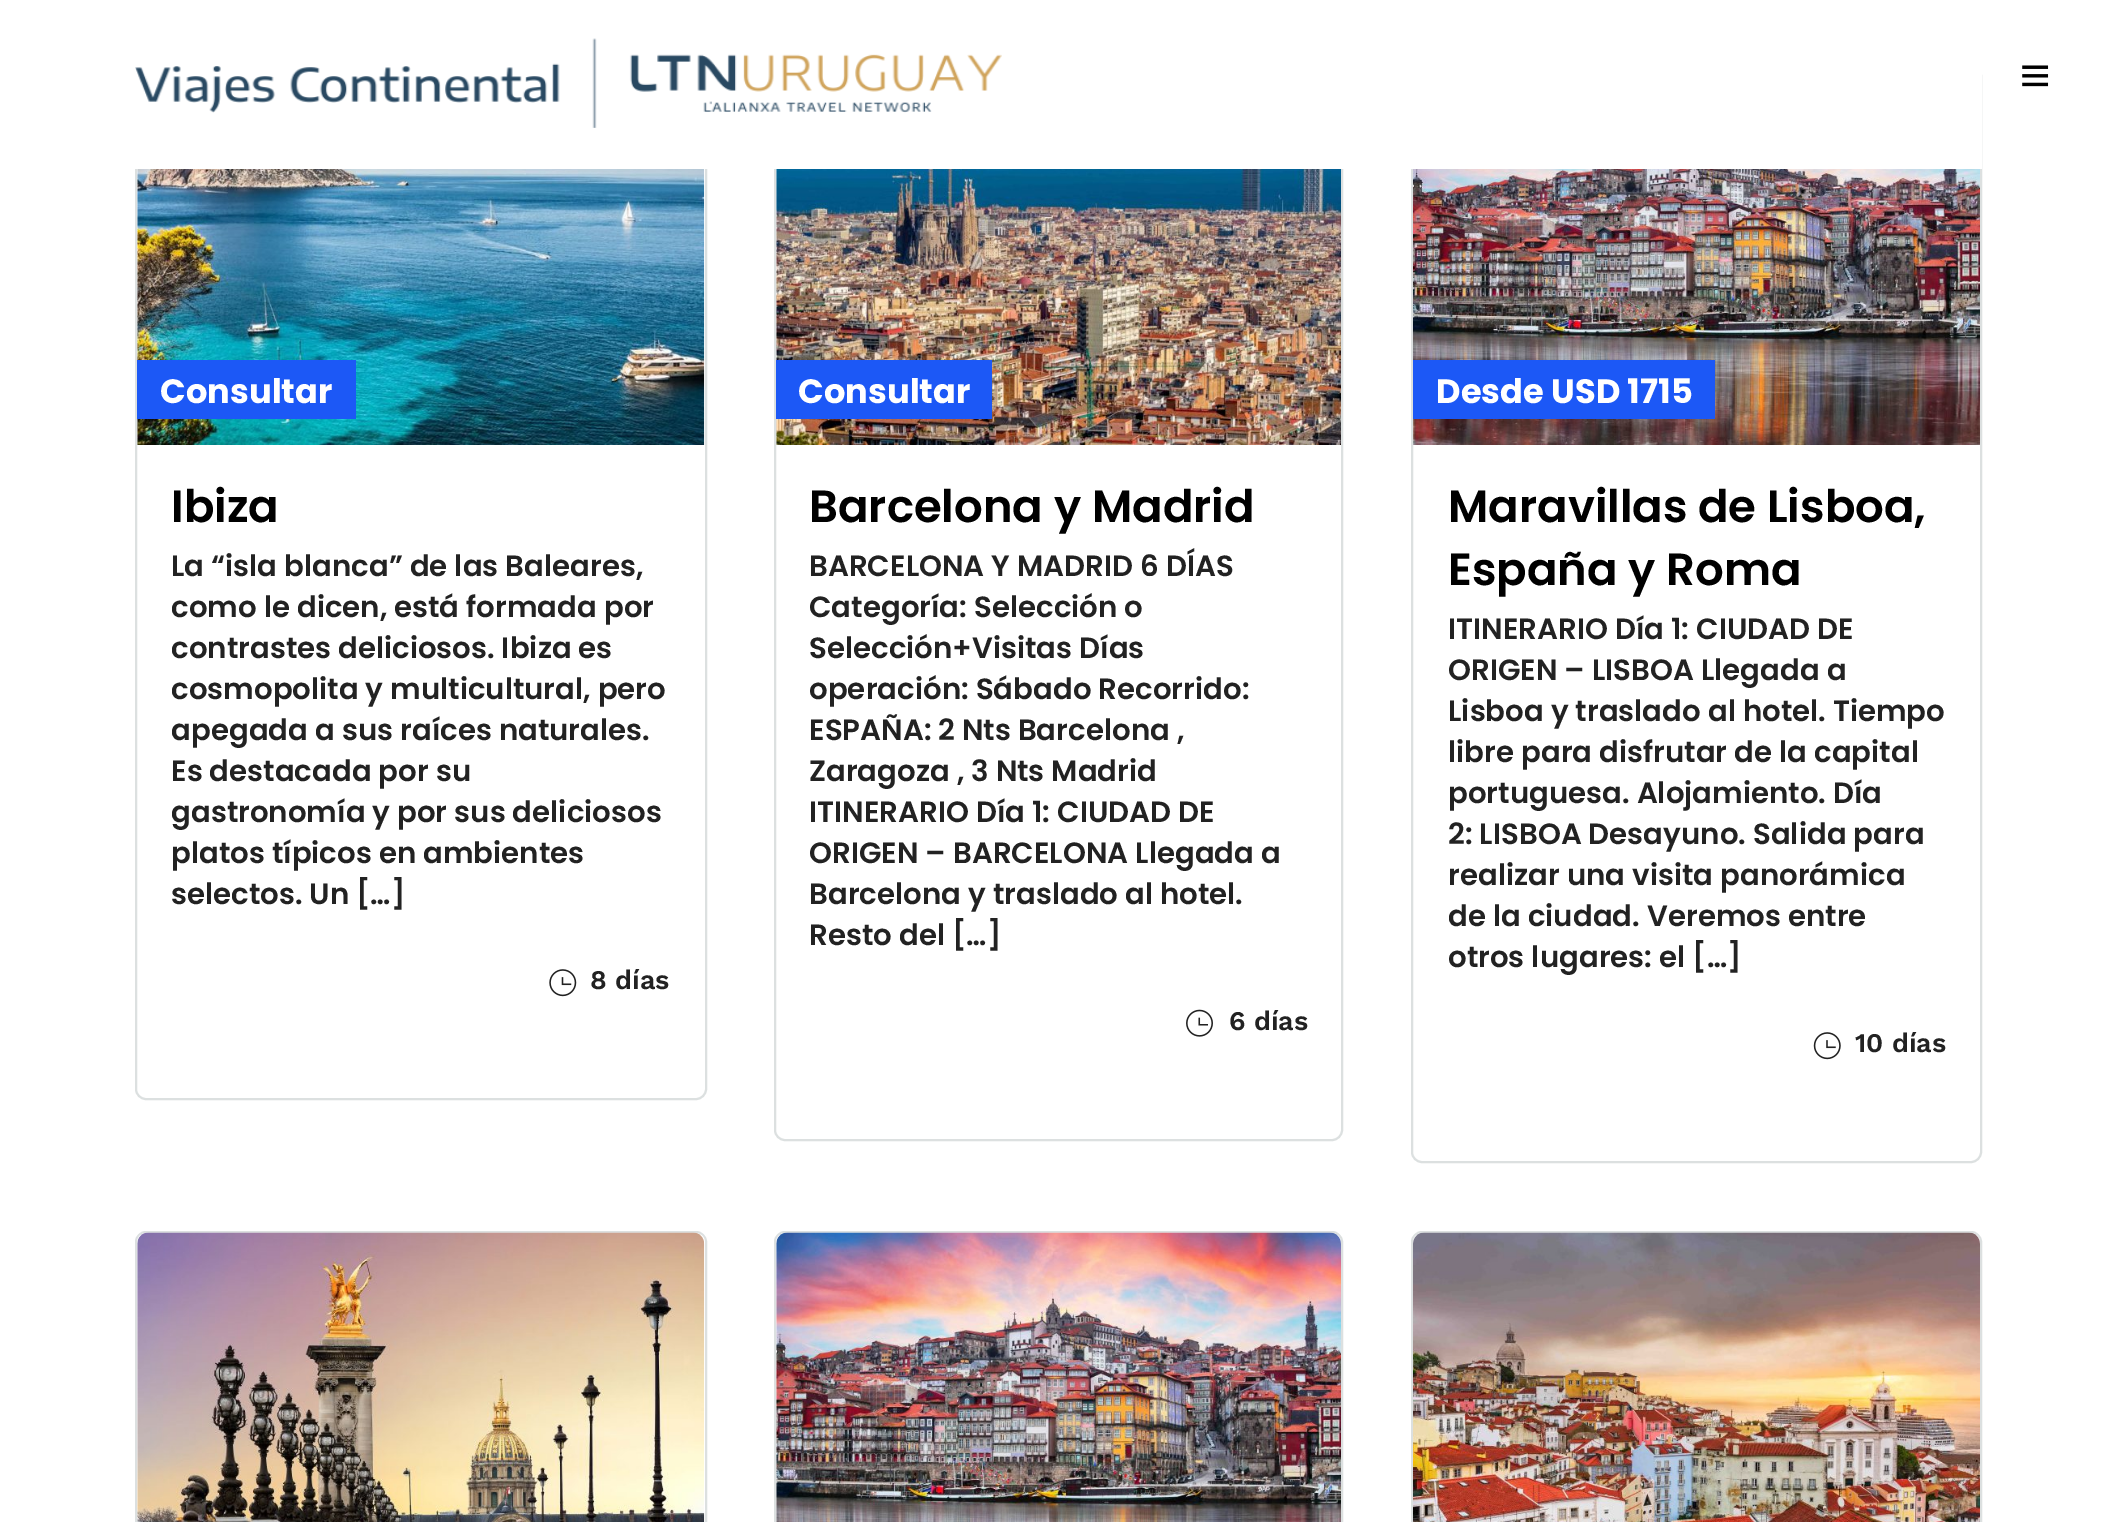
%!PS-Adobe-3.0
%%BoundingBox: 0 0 2117 1522
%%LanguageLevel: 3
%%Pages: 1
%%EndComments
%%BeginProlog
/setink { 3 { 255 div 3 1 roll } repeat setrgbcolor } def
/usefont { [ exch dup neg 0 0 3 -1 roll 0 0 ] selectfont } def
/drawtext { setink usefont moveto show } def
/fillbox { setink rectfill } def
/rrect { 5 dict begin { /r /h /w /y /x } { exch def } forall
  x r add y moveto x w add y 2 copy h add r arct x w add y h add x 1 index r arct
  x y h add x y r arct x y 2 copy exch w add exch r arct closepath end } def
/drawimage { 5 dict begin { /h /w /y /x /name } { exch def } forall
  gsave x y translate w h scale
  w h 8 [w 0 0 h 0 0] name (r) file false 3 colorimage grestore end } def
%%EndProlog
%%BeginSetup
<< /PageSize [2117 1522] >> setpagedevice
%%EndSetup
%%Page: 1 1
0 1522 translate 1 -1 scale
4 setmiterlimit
0 0 2117 1522 255 255 255 fillbox
220 224 224 setink
2 setlinewidth
136 66 570 1033 10 rrect stroke
775 66 567 1074 10 rrect stroke
1412 66 569 1096 10 rrect stroke
135 65 1847 104 255 255 255 fillbox
(assets/img1.rgb) 135 38 867 90 drawimage
(assets/img2.rgb) 2022 65 27 22 drawimage
(assets/img3.rgb) 137 169 568 276 drawimage
137 360 219 59 28 88 246 fillbox
(Consultar) 160 403 /Poppins-Bold 33.75 255 255 255 drawtext
(Ibiza) 171 522 /Poppins-SemiBold 45 0 0 0 drawtext
(La “isla blanca” de las Baleares,) 171 576 /Poppins-SemiBold 29.25 34 34 34 drawtext
(como le dicen, está formada por) 171 617 /Poppins-SemiBold 29.25 34 34 34 drawtext
(contrastes deliciosos. Ibiza es) 171 658 /Poppins-SemiBold 29.25 34 34 34 drawtext
(cosmopolita y multicultural, pero) 171 699 /Poppins-SemiBold 29.25 34 34 34 drawtext
(apegada a sus raíces naturales.) 171 740 /Poppins-SemiBold 29.25 34 34 34 drawtext
(Es destacada por su) 171 781 /Poppins-SemiBold 29.25 34 34 34 drawtext
(gastronomía y por sus deliciosos) 171 822 /Poppins-SemiBold 29.25 34 34 34 drawtext
(platos típicos en ambientes) 171 863 /Poppins-SemiBold 29.25 34 34 34 drawtext
(selectos. Un […]) 171 904 /Poppins-SemiBold 29.25 34 34 34 drawtext
(assets/img4.rgb) 549 969 28 28 drawimage
(8 días) 590 989 /WorkSans-SemiBold 27 34 34 34 drawtext
(assets/img5.rgb) 776 169 565 276 drawimage
776 360 216 59 28 88 246 fillbox
(Consultar) 798 403 /Poppins-Bold 33.75 255 255 255 drawtext
(Barcelona y Madrid) 809 522 /Poppins-SemiBold 45 0 0 0 drawtext
(BARCELONA Y MADRID 6 DÍAS) 809 576 /Poppins-SemiBold 29.25 34 34 34 drawtext
(Categoría: Selección o) 809 617 /Poppins-SemiBold 29.25 34 34 34 drawtext
(Selección+Visitas Días) 809 658 /Poppins-SemiBold 29.25 34 34 34 drawtext
(operación: Sábado Recorrido:) 809 699 /Poppins-SemiBold 29.25 34 34 34 drawtext
(ESPAÑA: 2 Nts Barcelona ,) 809 740 /Poppins-SemiBold 29.25 34 34 34 drawtext
(Zaragoza , 3 Nts Madrid) 809 781 /Poppins-SemiBold 29.25 34 34 34 drawtext
(ITINERARIO Día 1: CIUDAD DE) 809 822 /Poppins-SemiBold 29.25 34 34 34 drawtext
(ORIGEN – BARCELONA Llegada a) 809 863 /Poppins-SemiBold 29.25 34 34 34 drawtext
(Barcelona y traslado al hotel.) 809 904 /Poppins-SemiBold 29.25 34 34 34 drawtext
(Resto del […]) 809 945 /Poppins-SemiBold 29.25 34 34 34 drawtext
(assets/img6.rgb) 1186 1009 27 28 drawimage
(6 días) 1229 1030 /WorkSans-SemiBold 27 34 34 34 drawtext
(assets/img7.rgb) 1413 169 567 276 drawimage
1413 360 302 59 28 88 246 fillbox
(Desde USD 1715) 1436 403 /Poppins-Bold 33.75 255 255 255 drawtext
(Maravillas de Lisboa,) 1448 522 /Poppins-SemiBold 45 0 0 0 drawtext
(España y Roma) 1448 585 /Poppins-SemiBold 45 0 0 0 drawtext
(ITINERARIO Día 1: CIUDAD DE) 1448 639 /Poppins-SemiBold 29.25 34 34 34 drawtext
(ORIGEN – LISBOA Llegada a) 1448 680 /Poppins-SemiBold 29.25 34 34 34 drawtext
(Lisboa y traslado al hotel. Tiempo) 1448 721 /Poppins-SemiBold 29.25 34 34 34 drawtext
(libre para disfrutar de la capital) 1448 762 /Poppins-SemiBold 29.25 34 34 34 drawtext
(portuguesa. Alojamiento. Día) 1448 803 /Poppins-SemiBold 29.25 34 34 34 drawtext
(2: LISBOA Desayuno. Salida para) 1448 844 /Poppins-SemiBold 29.25 34 34 34 drawtext
(realizar una visita panorámica) 1448 885 /Poppins-SemiBold 29.25 34 34 34 drawtext
(de la ciudad. Veremos entre) 1448 926 /Poppins-SemiBold 29.25 34 34 34 drawtext
(otros lugares: el […]) 1448 967 /Poppins-SemiBold 29.25 34 34 34 drawtext
(assets/img8.rgb) 1813 1032 28 28 drawimage
(10 días) 1855 1052 /WorkSans-SemiBold 27 34 34 34 drawtext
220 224 224 setink
136 1232 570 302 10 rrect stroke
(assets/img9.rgb) 137 1232 568 290 drawimage
775 1232 567 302 10 rrect stroke
(assets/img10.rgb) 776 1232 565 290 drawimage
1412 1232 569 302 10 rrect stroke
(assets/img11.rgb) 1413 1232 567 290 drawimage
showpage
%%EOF
